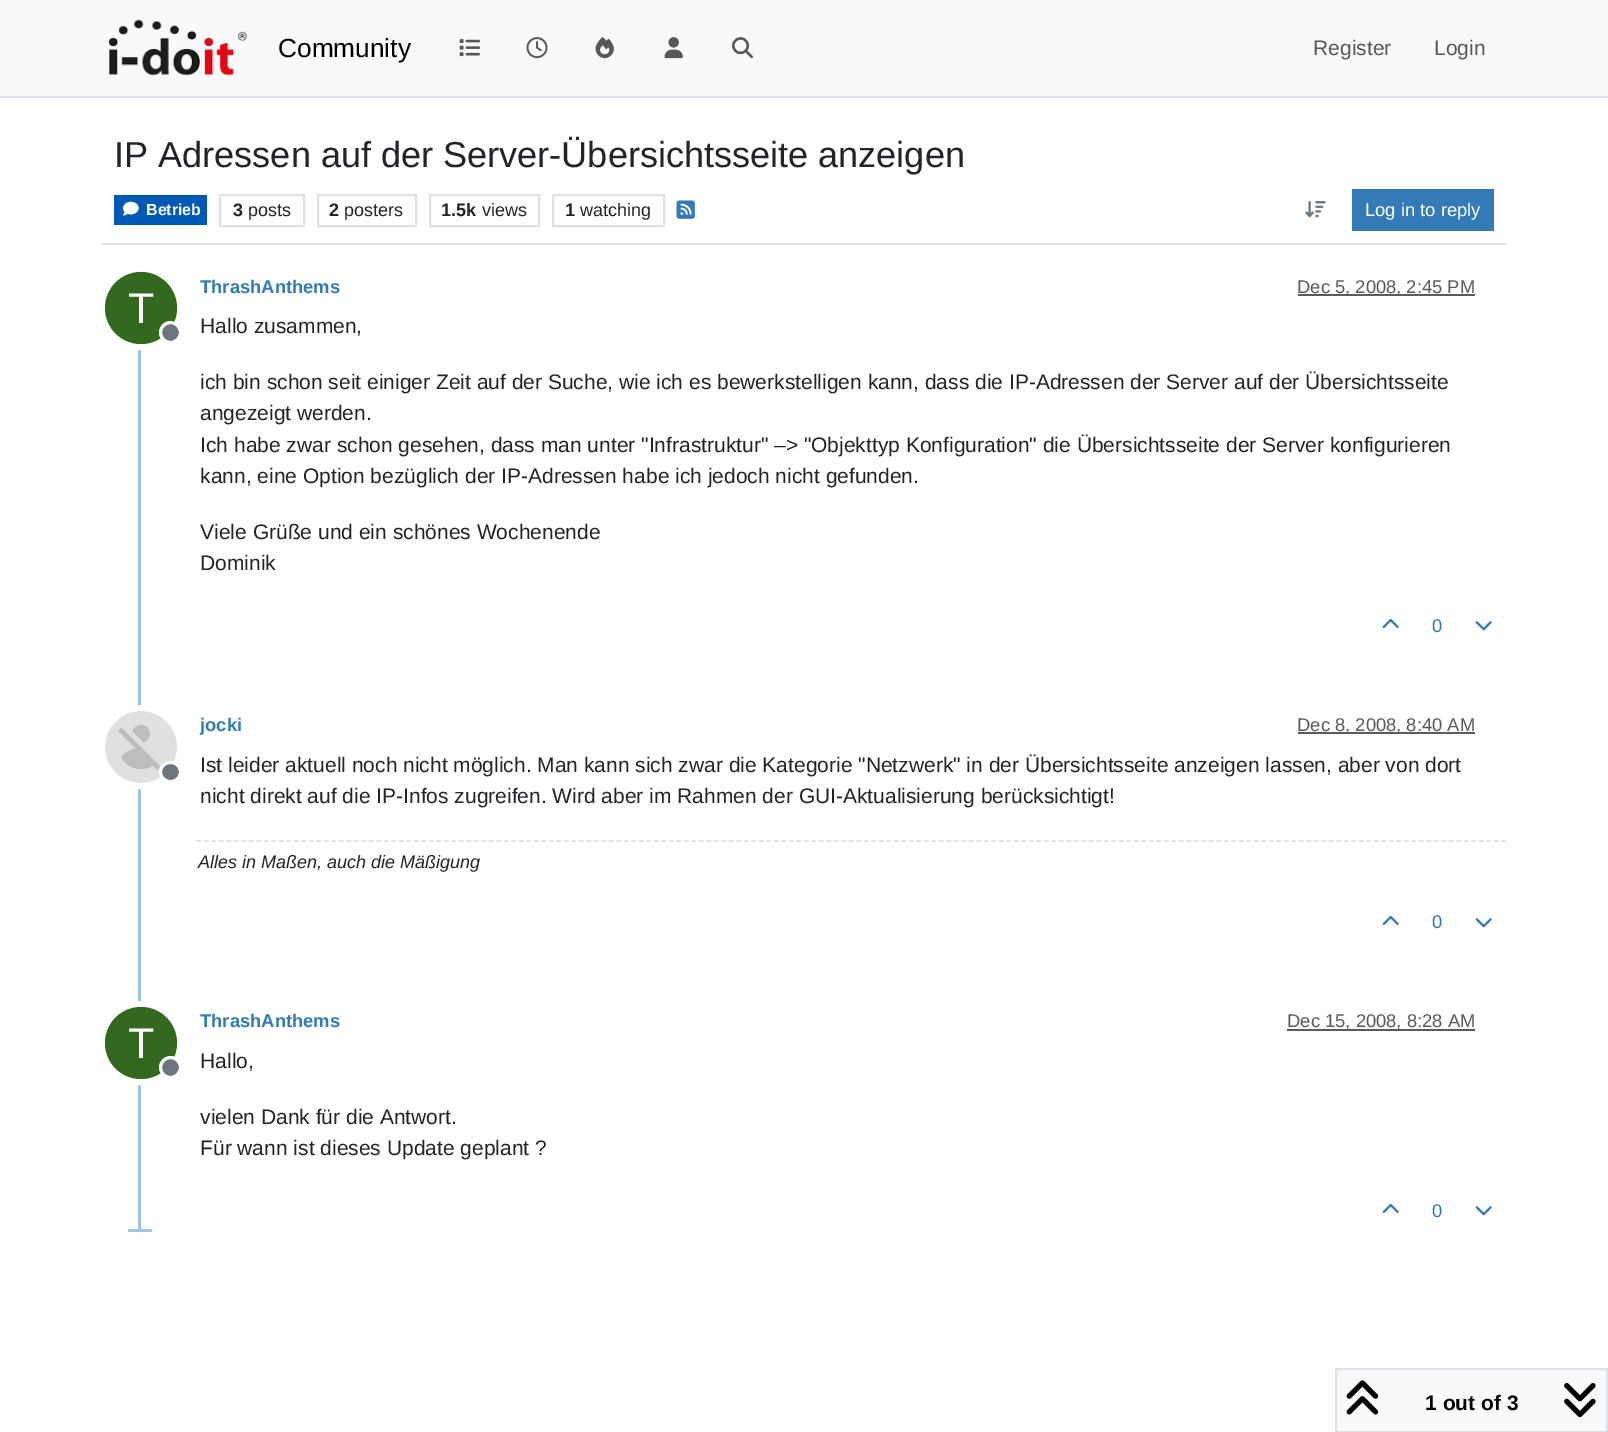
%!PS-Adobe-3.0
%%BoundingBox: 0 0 1608 1432
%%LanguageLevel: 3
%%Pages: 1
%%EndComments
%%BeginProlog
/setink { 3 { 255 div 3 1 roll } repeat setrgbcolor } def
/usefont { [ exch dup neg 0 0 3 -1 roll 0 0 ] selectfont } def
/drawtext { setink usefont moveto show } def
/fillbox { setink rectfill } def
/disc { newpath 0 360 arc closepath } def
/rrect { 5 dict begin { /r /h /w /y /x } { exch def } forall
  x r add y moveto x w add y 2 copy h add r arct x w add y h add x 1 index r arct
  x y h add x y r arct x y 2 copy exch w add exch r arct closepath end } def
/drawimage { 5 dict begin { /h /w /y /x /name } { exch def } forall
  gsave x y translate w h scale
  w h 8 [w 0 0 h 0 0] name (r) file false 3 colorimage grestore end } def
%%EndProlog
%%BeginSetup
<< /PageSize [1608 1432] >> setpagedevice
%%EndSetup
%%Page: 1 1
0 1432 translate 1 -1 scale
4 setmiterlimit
0 0 1608 1432 255 255 255 fillbox
0 0 1608 96 248 249 250 fillbox
0 96 1608 2 222 226 230 fillbox
(assets/img1.rgb) 108 19 140 57 drawimage
(Community) 278 57 /LiberationSans-Regular 26.25 0 0 0 drawtext
(assets/img2.rgb) 459 39 21 18 drawimage
(assets/img3.rgb) 526 37 22 22 drawimage
(assets/img4.rgb) 595 37 19 22 drawimage
(assets/img5.rgb) 664 37 19 22 drawimage
(assets/img6.rgb) 732 37 21 22 drawimage
(Register) 1313 55 /LiberationSans-Regular 21 87 87 88 drawtext
(Login) 1434 55 /LiberationSans-Regular 21 87 87 88 drawtext
102 243 1404 2 222 226 230 fillbox
(IP Adressen auf der Server-Übersichtsseite anzeigen) 114 167 /LiberationSans-Regular 36.1 33 37 41 drawtext
114 195 93 30 0 89 178 fillbox
(assets/img7.rgb) 123 201 16 15 drawimage
(Betrieb) 146 215 /LiberationSans-Bold 16 255 255 255 drawtext
222 226 230 setink
2 setlinewidth
220 195 84 31 rectstroke
(3) 233 216 /LiberationSans-Bold 18 33 37 41 drawtext
(posts) 248 216 /LiberationSans-Regular 18 33 37 41 drawtext
222 226 230 setink
318 195 98 31 rectstroke
(2) 329 216 /LiberationSans-Bold 18 33 37 41 drawtext
(posters) 344 216 /LiberationSans-Regular 18 33 37 41 drawtext
222 226 230 setink
430 195 109 31 rectstroke
(1.5k) 441 216 /LiberationSans-Bold 18 33 37 41 drawtext
(views) 482 216 /LiberationSans-Regular 18 33 37 41 drawtext
222 226 230 setink
553 195 111 31 rectstroke
(1) 565 216 /LiberationSans-Bold 18 33 37 41 drawtext
(watching) 580 216 /LiberationSans-Regular 18 33 37 41 drawtext
(assets/img8.rgb) 676 200 19 19 drawimage
(assets/img9.rgb) 1305 201 21 17 drawimage
1352 189 142 42 51 122 183 fillbox
(Log in to reply) 1365 216 /LiberationSans-Regular 18.4 255 255 255 drawtext
138 269 3 963 160 196 228 fillbox
(ThrashAnthems) 200 293 /LiberationSans-Bold 18.4 51 122 183 drawtext
1298 294 177 2 89 92 95 fillbox
(Dec 5, 2008, 2:45 PM) 1297 293 /LiberationSans-Regular 18.4 88 91 94 drawtext
255 255 255 setink
6 setlinewidth
141 308 39 disc stroke
51 105 30 setink
141 308 36 disc fill
(T) 128 323 /LiberationSans-Regular 43 255 255 255 drawtext
108 117 125 setink
170.5 332.5 10 disc gsave fill grestore
255 255 255 setink
3 setlinewidth
stroke
(Hallo zusammen,) 200 333 /LiberationSans-Regular 21 33 37 41 drawtext
(ich bin schon seit einiger Zeit auf der Suche, wie ich es bewerkstelligen kann, dass die IP-Adressen der Server auf der Übersichtsseite) 200 389 /LiberationSans-Regular 21 33 37 41 drawtext
(angezeigt werden.) 200 420 /LiberationSans-Regular 21 33 37 41 drawtext
(Ich habe zwar schon gesehen, dass man unter "Infrastruktur" –> "Objekttyp Konfiguration" die Übersichtsseite der Server konfigurieren) 200 452 /LiberationSans-Regular 21 33 37 41 drawtext
(kann, eine Option bezüglich der IP-Adressen habe ich jedoch nicht gefunden.) 200 483 /LiberationSans-Regular 21 33 37 41 drawtext
(Viele Grüße und ein schönes Wochenende) 200 539 /LiberationSans-Regular 21 33 37 41 drawtext
(Dominik) 200 570 /LiberationSans-Regular 21 33 37 41 drawtext
(assets/img10.rgb) 1382 618 17 10 drawimage
(0) 1432 632 /LiberationSans-Regular 18.4 51 122 183 drawtext
(assets/img11.rgb) 1475 621 17 10 drawimage
255 255 255 setink
6 setlinewidth
141 747 39 disc stroke
(assets/img12.rgb) 105 711 72 72 drawimage
108 117 125 setink
160.5 762.5 20 19 9.5 rrect gsave fill grestore
255 255 255 setink
3 setlinewidth
stroke
(jocki) 200 731 /LiberationSans-Bold 18.4 51 122 183 drawtext
1298 732 177 2 89 92 95 fillbox
(Dec 8, 2008, 8:40 AM) 1297 731 /LiberationSans-Regular 18.4 88 91 94 drawtext
(Ist leider aktuell noch nicht möglich. Man kann sich zwar die Kategorie "Netzwerk" in der Übersichtsseite anzeigen lassen, aber von dort) 200 772 /LiberationSans-Regular 21 33 37 41 drawtext
(nicht direkt auf die IP-Infos zugreifen. Wird aber im Rahmen der GUI-Aktualisierung berücksichtigt!) 200 803 /LiberationSans-Regular 21 33 37 41 drawtext
222 222 222 setink
1.5 setlinewidth
[4.5 3] 0 setdash
196.5 841 moveto 1506 841 lineto stroke
(Alles in Maßen, auch die Mäßigung) 198 868 /LiberationSans-Italic 18 33 37 41 drawtext
(assets/img10.rgb) 1382 915 17 10 drawimage
(0) 1432 928 /LiberationSans-Regular 18.4 51 122 183 drawtext
(assets/img11.rgb) 1475 918 17 10 drawimage
(ThrashAnthems) 200 1027 /LiberationSans-Bold 18.4 51 122 183 drawtext
1287 1029 188 2 89 92 95 fillbox
(Dec 15, 2008, 8:28 AM) 1287 1027 /LiberationSans-Regular 18.4 88 91 94 drawtext
255 255 255 setink
6 setlinewidth
[] 0 setdash
141 1043 39 disc stroke
51 105 30 setink
141 1043 36 disc fill
(T) 128 1058 /LiberationSans-Regular 43 255 255 255 drawtext
108 117 125 setink
170.5 1067.5 10 disc gsave fill grestore
255 255 255 setink
3 setlinewidth
stroke
(Hallo,) 200 1068 /LiberationSans-Regular 21 33 37 41 drawtext
(vielen Dank für die Antwort.) 200 1124 /LiberationSans-Regular 21 33 37 41 drawtext
(Für wann ist dieses Update geplant ?) 200 1155 /LiberationSans-Regular 21 33 37 41 drawtext
(assets/img10.rgb) 1382 1203 17 10 drawimage
(0) 1432 1217 /LiberationSans-Regular 18.4 51 122 183 drawtext
(assets/img11.rgb) 1475 1206 17 10 drawimage
128 1229 24 3 160 196 228 fillbox
248 249 250 setink
1336 1369 moveto 1607 1369 lineto 1607 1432 lineto 1336 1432 lineto closepath gsave fill grestore
222 226 230 setink
2 setlinewidth
stroke
(assets/img13.rgb) 1346 1380 33 35 drawimage
(1 out of 3) 1425 1410 /LiberationSans-Bold 21 0 0 0 drawtext
(assets/img14.rgb) 1564 1383 32 35 drawimage
showpage
%%EOF
